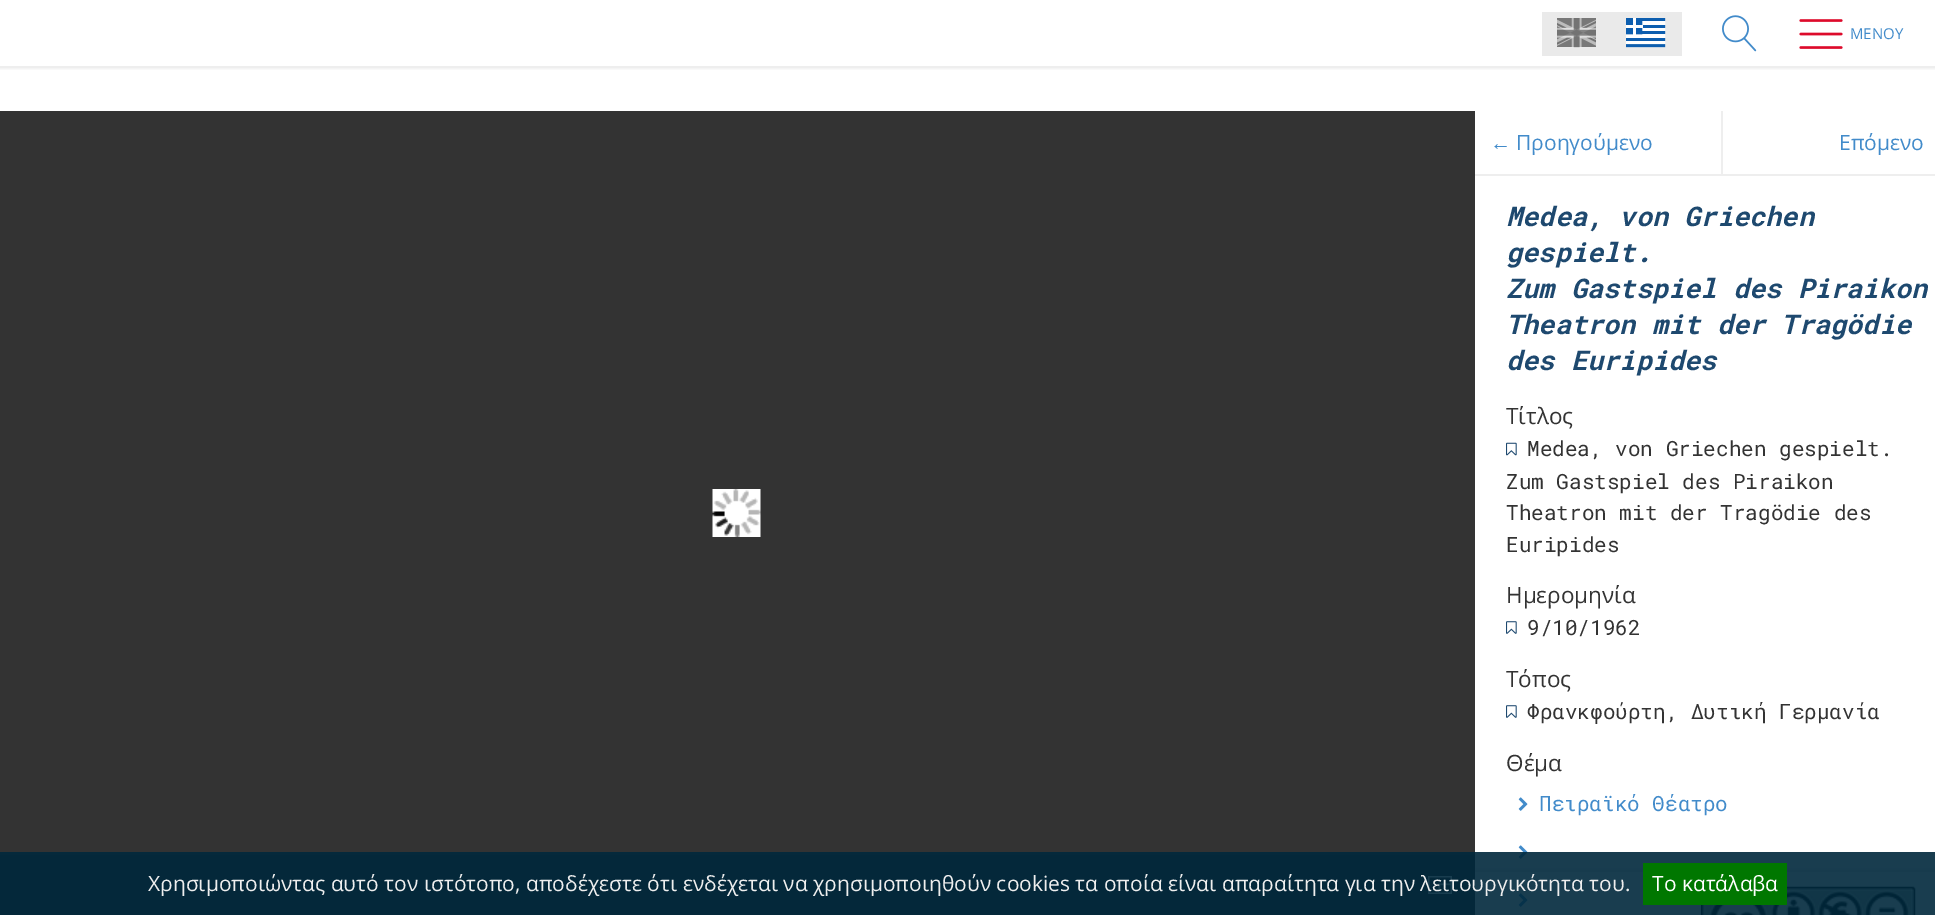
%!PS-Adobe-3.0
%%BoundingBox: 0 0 1935 915
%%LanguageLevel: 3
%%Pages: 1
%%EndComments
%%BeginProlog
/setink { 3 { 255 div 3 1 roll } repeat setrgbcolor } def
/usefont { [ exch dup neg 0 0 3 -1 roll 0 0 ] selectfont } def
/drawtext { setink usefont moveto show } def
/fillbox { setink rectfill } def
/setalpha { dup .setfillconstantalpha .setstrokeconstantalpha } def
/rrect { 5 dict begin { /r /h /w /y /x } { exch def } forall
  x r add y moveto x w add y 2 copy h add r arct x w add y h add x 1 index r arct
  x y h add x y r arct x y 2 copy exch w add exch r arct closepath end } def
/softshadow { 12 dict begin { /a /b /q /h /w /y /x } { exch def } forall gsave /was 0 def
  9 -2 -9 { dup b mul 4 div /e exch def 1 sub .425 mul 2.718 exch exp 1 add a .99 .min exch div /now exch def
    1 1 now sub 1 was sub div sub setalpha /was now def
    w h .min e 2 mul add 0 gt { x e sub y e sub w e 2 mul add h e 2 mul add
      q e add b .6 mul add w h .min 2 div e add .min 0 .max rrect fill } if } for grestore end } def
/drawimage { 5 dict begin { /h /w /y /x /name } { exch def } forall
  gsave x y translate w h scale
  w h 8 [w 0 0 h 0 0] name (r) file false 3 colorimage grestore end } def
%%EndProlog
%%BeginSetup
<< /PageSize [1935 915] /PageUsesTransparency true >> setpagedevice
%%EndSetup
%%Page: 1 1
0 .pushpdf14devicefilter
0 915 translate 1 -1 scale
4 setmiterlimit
0 0 1935 915 255 255 255 fillbox
gsave
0 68 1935 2 rectclip
0 0 0 setink
0 2 1935 66 0 2 0.11 softshadow
grestore
1542 12 140 44 234 234 234 fillbox
(assets/img1.rgb) 1557 18 39 30 drawimage
(assets/img2.rgb) 1626 18 40 30 drawimage
(assets/img3.rgb) 1722 15 35 37 drawimage
(assets/img4.rgb) 1799 19 44 30 drawimage
(MENOY) 1850 39 /OpenSans-Regular 15 66 139 202 drawtext
0 66 1935 2 238 238 238 fillbox
0 111 1475 744 51 51 51 fillbox
(assets/img5.rgb) 712 489 49 48 drawimage
gsave
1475 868 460 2 rectclip
0 0 0 setink
0 870 1935 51 0 2 0.11 softshadow
grestore
0 855 1475 60 41 41 41 fillbox
(assets/img6.rgb) 1428 876 24 18 drawimage
1475 174 460 2 238 238 238 fillbox
(←) 1490 150 /LiberationSans-Regular 21 66 139 202 drawtext
(Προηγούμενο) 1516 150 /OpenSans-Regular 21 66 139 202 drawtext
1721 111 2 63 238 238 238 fillbox
(Επόμενο) 1839 150 /OpenSans-Regular 21 66 139 202 drawtext
(Medea, von Griechen) 1506 226 /RobotoMono-BoldItalic 27 30 73 111 drawtext
(gespielt.) 1506 262 /RobotoMono-BoldItalic 27 30 73 111 drawtext
(Zum Gastspiel des Piraikon) 1506 298 /RobotoMono-BoldItalic 27 30 73 111 drawtext
(Theatron mit der Tragödie) 1506 334 /RobotoMono-BoldItalic 27 30 73 111 drawtext
(des Euripides) 1506 370 /RobotoMono-BoldItalic 27 30 73 111 drawtext
(Τίτλος) 1506 424 /OpenSans-Regular 22.5 51 51 51 drawtext
(assets/img7.rgb) 1506 442 11 14 drawimage
(Medea, von Griechen gespielt.) 1527 456 /RobotoMono-Regular 21 51 51 51 drawtext
(Zum Gastspiel des Piraikon) 1506 489 /RobotoMono-Regular 21 51 51 51 drawtext
(Theatron mit der Tragödie des) 1506 520 /RobotoMono-Regular 21 51 51 51 drawtext
(Euripides) 1506 552 /RobotoMono-Regular 21 51 51 51 drawtext
(Ημερομηνία) 1506 603 /OpenSans-Regular 22.5 51 51 51 drawtext
(assets/img8.rgb) 1506 621 11 13 drawimage
(9/10/1962) 1527 635 /RobotoMono-Regular 21 51 51 51 drawtext
(Τόπος) 1506 687 /OpenSans-Regular 22.5 51 51 51 drawtext
(assets/img8.rgb) 1506 705 11 13 drawimage
(Φρανκφούρτη, Δυτική Γερμανία) 1527 719 /RobotoMono-Regular 21 51 51 51 drawtext
(Θέμα) 1506 771 /OpenSans-Regular 22.5 51 51 51 drawtext
(assets/img9.rgb) 1518 797 10 14 drawimage
(Πειραϊκό Θέατρο) 1539 811 /RobotoMono-Regular 21 66 139 202 drawtext
(assets/img9.rgb) 1518 845 10 14 drawimage
(assets/img9.rgb) 1518 893 10 14 drawimage
1475 870 460 2 238 238 238 fillbox
(assets/img10.rgb) 1701 886 215 29 drawimage
0.9 setalpha
0 852 1935 63 0 40 60 fillbox
1 setalpha
(Χρησιμοποιώντας αυτό τον ιστότοπο, αποδέχεστε ότι ενδέχεται να χρησιμοποιηθούν cookies τα οποία είναι απαραίτητα για την λειτουργικότητα του.) 148 891 /OpenSans-Regular 21 238 238 238 drawtext
1643 863 144 42 0 119 0 fillbox
(Το κατάλαβα) 1652 891 /OpenSans-Regular 21 255 255 255 drawtext
.poppdf14devicefilter showpage
%%EOF
